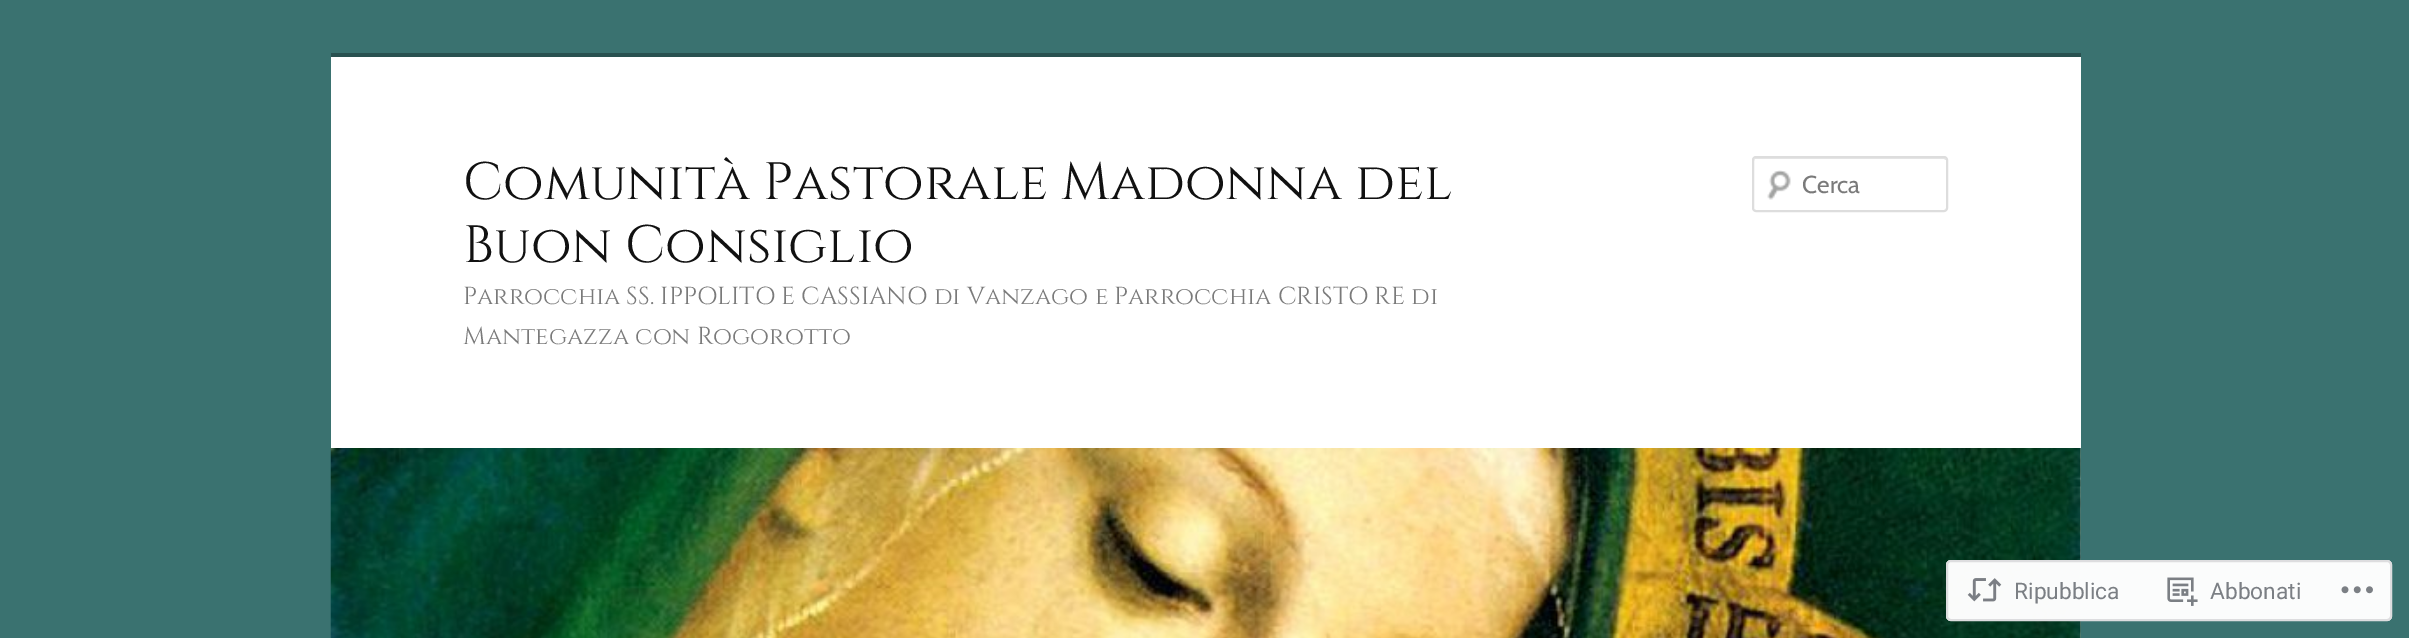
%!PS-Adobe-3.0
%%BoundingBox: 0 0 2409 638
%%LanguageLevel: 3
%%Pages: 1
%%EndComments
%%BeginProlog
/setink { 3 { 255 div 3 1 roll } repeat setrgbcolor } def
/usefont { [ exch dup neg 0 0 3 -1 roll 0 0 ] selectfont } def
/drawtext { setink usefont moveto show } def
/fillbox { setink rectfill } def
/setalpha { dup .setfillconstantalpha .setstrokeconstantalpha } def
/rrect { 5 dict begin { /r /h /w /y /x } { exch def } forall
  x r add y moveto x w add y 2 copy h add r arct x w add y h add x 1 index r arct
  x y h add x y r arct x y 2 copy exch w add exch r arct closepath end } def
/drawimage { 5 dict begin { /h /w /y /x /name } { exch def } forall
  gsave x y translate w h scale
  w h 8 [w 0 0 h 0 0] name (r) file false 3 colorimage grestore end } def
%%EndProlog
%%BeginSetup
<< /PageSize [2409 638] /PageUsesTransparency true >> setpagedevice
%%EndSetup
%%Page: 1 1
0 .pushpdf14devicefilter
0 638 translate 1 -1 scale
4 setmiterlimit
0 0 2409 638 58 114 112 fillbox
331 57 1750 581 255 255 255 fillbox
331 53 1750 4 41 81 80 fillbox
(Comunità Pastorale Madonna del) 463 199 /Cinzel-Regular 52.5 17 17 17 drawtext
(Buon Consiglio) 463 262 /Cinzel-Regular 52.5 17 17 17 drawtext
(Parrocchia SS. IPPOLITO E CASSIANO di Vanzago e Parrocchia CRISTO RE di) 463 304 /Cinzel-Regular 24.5 122 122 122 drawtext
(Mantegazza con Rogorotto) 463 344 /Cinzel-Regular 24.5 122 122 122 drawtext
(assets/img1.rgb) 1767 170 24 30 drawimage
230 230 230 setink
1755 159 moveto 1944 159 lineto 1946 160 lineto 1946 161 lineto 1946 160 lineto 1946 159 1945 158 1944 158 curveto 1756 158 lineto 1755 158 1754 159 1754 160 curveto 1754 161 lineto 1754 160 1754 159 1755 159 curveto closepath fill
221 221 221 setink
2 setlinewidth
1753 157 194 54 3 rrect stroke
gsave
1803 168 126 32 rectclip
(Cerca) 1802 193 /Cabin-Regular 24.5 122 122 122 drawtext
grestore
(assets/img2.rgb) 330 448 1751 190 drawimage
0.98 setalpha
255 255 255 setink
1946 560 446 61 5 rrect fill
220 220 222 setink
1947 561 444 59 4 rrect stroke
1 setalpha
(assets/img3.rgb) 1967 578 35 24 drawimage
(Ripubblica) 2014 599 /Roboto-Regular 22.75 123 127 132 drawtext
(assets/img4.rgb) 2167 577 31 29 drawimage
(Abbonati) 2210 599 /Roboto-Regular 22.75 123 127 132 drawtext
(assets/img5.rgb) 2341 586 32 8 drawimage
.poppdf14devicefilter showpage
%%EOF
